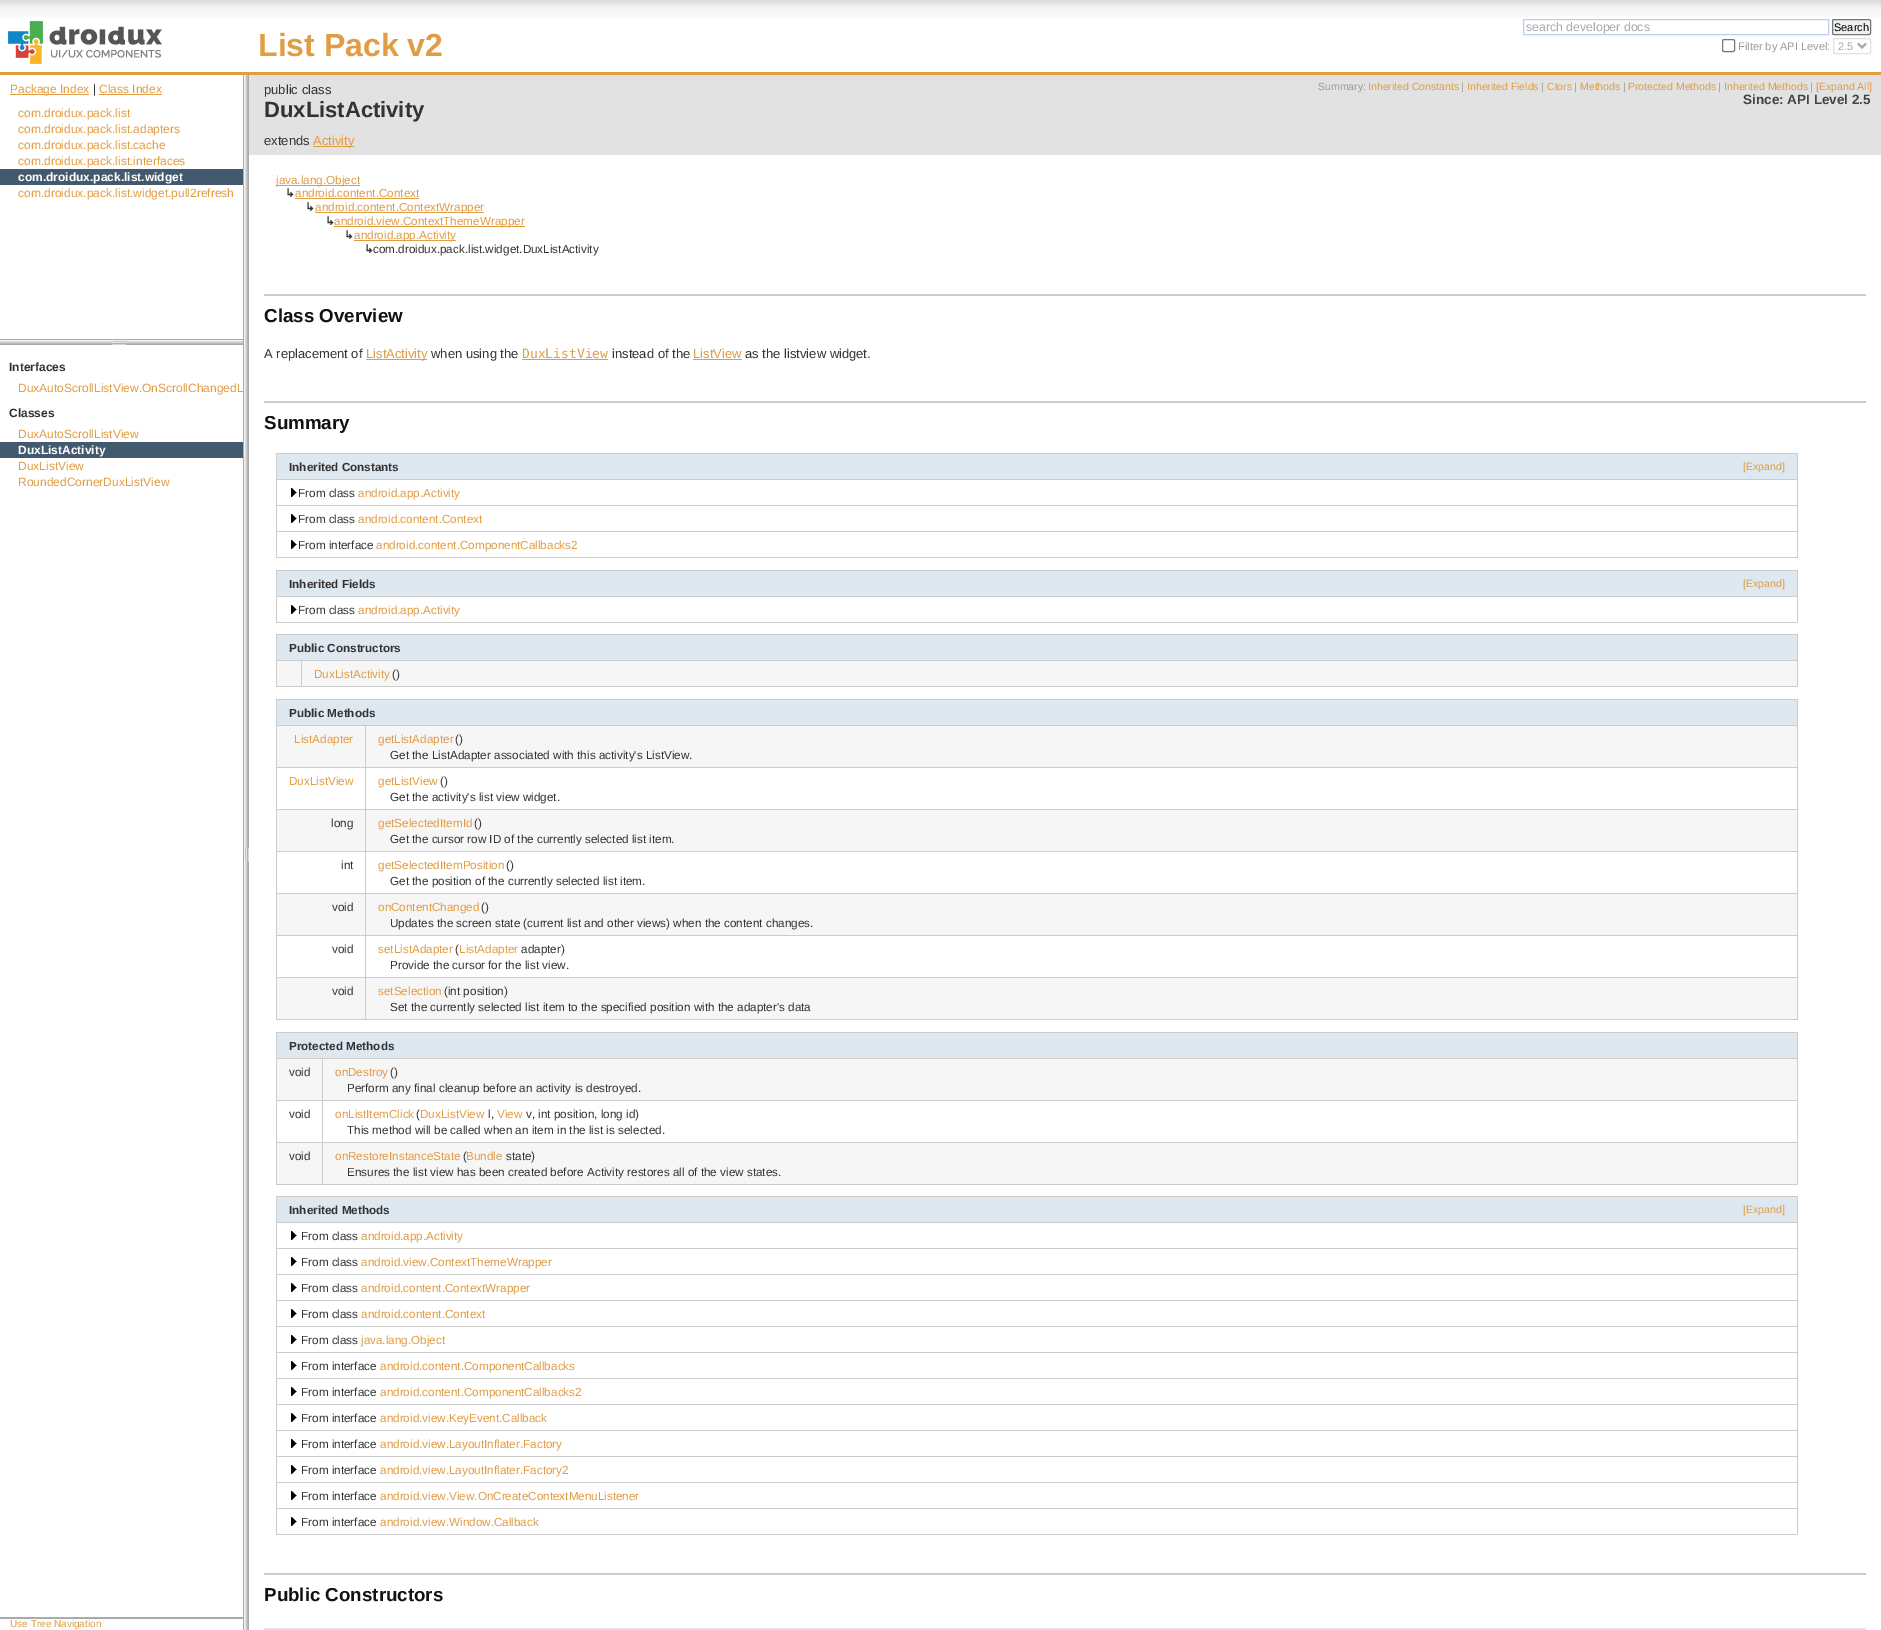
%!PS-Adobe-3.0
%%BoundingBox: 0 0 1881 1630
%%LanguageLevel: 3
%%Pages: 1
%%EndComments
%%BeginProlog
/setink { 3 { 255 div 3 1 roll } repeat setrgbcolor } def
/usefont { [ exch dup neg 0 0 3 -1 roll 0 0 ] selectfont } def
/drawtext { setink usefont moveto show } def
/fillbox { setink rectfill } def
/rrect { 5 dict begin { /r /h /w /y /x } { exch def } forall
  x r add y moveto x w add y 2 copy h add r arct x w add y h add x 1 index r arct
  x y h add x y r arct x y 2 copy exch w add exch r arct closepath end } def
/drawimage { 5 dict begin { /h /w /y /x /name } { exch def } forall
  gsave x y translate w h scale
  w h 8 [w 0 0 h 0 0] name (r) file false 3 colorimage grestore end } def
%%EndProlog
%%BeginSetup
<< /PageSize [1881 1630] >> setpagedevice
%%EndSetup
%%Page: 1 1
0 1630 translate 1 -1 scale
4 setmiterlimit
0 0 1881 1630 255 255 255 fillbox
(assets/img1.rgb) 0 0 1881 17 drawimage
0 72 1881 3 225 156 68 fillbox
(assets/img2.rgb) 8 21 154 43 drawimage
(List Pack v2) 258 56 /LiberationSans-Bold 32 225 156 68 drawtext
188 205 240 setink
1523.5 19.5 305 15 rectstroke
(search developer docs) 1526 31 /LiberationSans-Regular 12.3 170 170 170 drawtext
239 239 239 setink
1832.5 19.5 38 15 1.5 rrect gsave fill grestore
118 118 118 setink
stroke
(Search) 1834 31 /LiberationSans-Regular 11 0 0 0 drawtext
118 118 118 setink
1722.5 39.5 12 12 1.5 rrect stroke
(Filter by API Level:) 1738 50 /LiberationSans-Regular 11 153 153 153 drawtext
226 226 226 setink
1833.5 38.5 37 15 1.5 rrect stroke
166 166 166 setink
2 setlinewidth
1858 43.5 moveto 1862 47.5 lineto 1866 43.5 lineto stroke
(2.5) 1838 50 /LiberationSans-Regular 11 170 170 170 drawtext
0 1617 243 2 170 170 170 fillbox
10 94 79 1 225 156 68 fillbox
(Package Index) 10 93 /LiberationSans-Regular 12 225 156 68 drawtext
(|) 93 93 /LiberationSans-Regular 12 51 51 51 drawtext
(Class Index) 99 93 /LiberationSans-Regular 12 225 156 68 drawtext
99 94 63 1 225 156 68 fillbox
(com.droidux.pack.list) 18 117 /LiberationSans-Regular 12 225 156 68 drawtext
(com.droidux.pack.list.adapters) 18 133 /LiberationSans-Regular 12 225 156 68 drawtext
(com.droidux.pack.list.cache) 18 149 /LiberationSans-Regular 12 225 156 68 drawtext
(com.droidux.pack.list.interfaces) 18 165 /LiberationSans-Regular 12 225 156 68 drawtext
0 169 243 16 67 90 110 fillbox
(com.droidux.pack.list.widget) 18 181 /LiberationSans-Bold 12 255 255 255 drawtext
(com.droidux.pack.list.widget.pull2refresh) 18 197 /LiberationSans-Regular 12 225 156 68 drawtext
(assets/img3.rgb) 0 339 243 6 drawimage
(Interfaces) 9 371 /LiberationSans-Bold 12 51 51 51 drawtext
(DuxAutoScrollListView.OnScrollChangedL) 18 392 /LiberationSans-Regular 12 225 156 68 drawtext
(Classes) 9 417 /LiberationSans-Bold 12 51 51 51 drawtext
(DuxAutoScrollListView) 18 438 /LiberationSans-Regular 12 225 156 68 drawtext
0 442 243 16 67 90 110 fillbox
(DuxListActivity) 18 454 /LiberationSans-Bold 12 255 255 255 drawtext
(DuxListView) 18 470 /LiberationSans-Regular 12 225 156 68 drawtext
(RoundedCornerDuxListView) 18 486 /LiberationSans-Regular 12 225 156 68 drawtext
(assets/img4.rgb) 243 75 6 1555 drawimage
(Use Tree Navigation) 10 1627 /LiberationSans-Regular 10 225 156 68 drawtext
249 75 1632 80 226 226 226 fillbox
(public class) 264 94 /LiberationSans-Regular 13 51 51 51 drawtext
(DuxListActivity) 264 117 /LiberationSans-Bold 22 51 51 51 drawtext
(extends) 264 145 /LiberationSans-Regular 13 51 51 51 drawtext
313 146 41 1 225 156 68 fillbox
(Activity) 313 145 /LiberationSans-Regular 13 225 156 68 drawtext
(Summary:) 1318 90 /LiberationSans-Regular 10.5 153 153 153 drawtext
(Inherited Constants) 1368 90 /LiberationSans-Regular 10.5 225 156 68 drawtext
(|) 1461 90 /LiberationSans-Regular 10.5 153 153 153 drawtext
(Inherited Fields) 1467 90 /LiberationSans-Regular 10.5 225 156 68 drawtext
(|) 1541 90 /LiberationSans-Regular 10.5 153 153 153 drawtext
(Ctors) 1547 90 /LiberationSans-Regular 10.5 225 156 68 drawtext
(|) 1574 90 /LiberationSans-Regular 10.5 153 153 153 drawtext
(Methods) 1580 90 /LiberationSans-Regular 10.5 225 156 68 drawtext
(|) 1623 90 /LiberationSans-Regular 10.5 153 153 153 drawtext
(Protected Methods) 1628 90 /LiberationSans-Regular 10.5 225 156 68 drawtext
(|) 1718 90 /LiberationSans-Regular 10.5 153 153 153 drawtext
(Inherited Methods) 1724 90 /LiberationSans-Regular 10.5 225 156 68 drawtext
(|) 1810 90 /LiberationSans-Regular 10.5 153 153 153 drawtext
([Expand All]) 1816 90 /LiberationSans-Regular 10.5 225 156 68 drawtext
(Since: API Level 2.5) 1743 104 /LiberationSans-Bold 13.5 68 68 68 drawtext
276 185 84 1 225 156 68 fillbox
(java.lang.Object) 276 184 /LiberationSans-Regular 11.7 225 156 68 drawtext
(↳) 285 197 /DejaVuSans-Bold 11.7 51 51 51 drawtext
(android.content.Context) 295 197 /LiberationSans-Regular 11.7 225 156 68 drawtext
295 198 124 1 225 156 68 fillbox
(↳) 305 211 /DejaVuSans-Bold 11.7 51 51 51 drawtext
315 212 169 1 225 156 68 fillbox
(android.content.ContextWrapper) 315 211 /LiberationSans-Regular 11.7 225 156 68 drawtext
(↳) 325 225 /DejaVuSans-Bold 11.7 51 51 51 drawtext
334 226 191 1 225 156 68 fillbox
(android.view.ContextThemeWrapper) 334 225 /LiberationSans-Regular 11.7 225 156 68 drawtext
(↳) 344 239 /DejaVuSans-Bold 11.7 51 51 51 drawtext
354 240 102 1 225 156 68 fillbox
(android.app.Activity) 354 239 /LiberationSans-Regular 11.7 225 156 68 drawtext
(↳) 364 253 /DejaVuSans-Bold 11.7 51 51 51 drawtext
(com.droidux.pack.list.widget.DuxListActivity) 373 253 /LiberationSans-Regular 11.7 51 51 51 drawtext
264 294 1602 2 204 204 204 fillbox
(Class Overview) 264 322 /LiberationSans-Bold 18.75 17 17 17 drawtext
(A replacement of) 264 358 /LiberationSans-Regular 13 51 51 51 drawtext
366 359 61 1 225 156 68 fillbox
(ListActivity) 366 358 /LiberationSans-Regular 13 225 156 68 drawtext
(when using the) 431 358 /LiberationSans-Regular 13 51 51 51 drawtext
(DuxListView) 522 358 /DejaVuSansMono-Regular 13 225 156 68 drawtext
522 359 86 1 225 156 68 fillbox
(instead of the) 612 358 /LiberationSans-Regular 13 51 51 51 drawtext
(ListView) 693 358 /LiberationSans-Regular 13 225 156 68 drawtext
693 359 49 1 225 156 68 fillbox
(as the listview widget.) 745 358 /LiberationSans-Regular 13 51 51 51 drawtext
264 401 1602 2 204 204 204 fillbox
(Summary) 264 429 /LiberationSans-Bold 18.75 17 17 17 drawtext
277 454 1520 25 222 232 241 fillbox
276 453 1522 1 204 204 204 fillbox
276 479 1522 1 204 204 204 fillbox
276 505 1522 1 204 204 204 fillbox
276 531 1522 1 204 204 204 fillbox
1797 531 1 27 204 204 204 fillbox
1797 505 1 27 204 204 204 fillbox
1797 479 1 27 204 204 204 fillbox
1797 453 1 27 204 204 204 fillbox
276 557 1522 1 204 204 204 fillbox
276 531 1 27 204 204 204 fillbox
276 505 1 27 204 204 204 fillbox
276 479 1 27 204 204 204 fillbox
276 453 1 27 204 204 204 fillbox
(Inherited Constants) 289 471 /LiberationSans-Bold 11.7 51 51 51 drawtext
([Expand]) 1743 470 /LiberationSans-Regular 10.5 225 156 68 drawtext
(assets/img5.rgb) 291 488 6 9 drawimage
(From class) 298 497 /LiberationSans-Regular 11.7 51 51 51 drawtext
(android.app.Activity) 358 497 /LiberationSans-Regular 11.7 225 156 68 drawtext
(assets/img5.rgb) 291 514 6 9 drawimage
(From class) 298 523 /LiberationSans-Regular 11.7 51 51 51 drawtext
(android.content.Context) 358 523 /LiberationSans-Regular 11.7 225 156 68 drawtext
(assets/img5.rgb) 291 540 6 9 drawimage
(From interface) 298 549 /LiberationSans-Regular 11.7 51 51 51 drawtext
(android.content.ComponentCallbacks2) 376 549 /LiberationSans-Regular 11.7 225 156 68 drawtext
277 571 1520 25 222 232 241 fillbox
276 570 1522 1 204 204 204 fillbox
276 596 1522 1 204 204 204 fillbox
1797 596 1 27 204 204 204 fillbox
1797 570 1 27 204 204 204 fillbox
276 622 1522 1 204 204 204 fillbox
276 596 1 27 204 204 204 fillbox
276 570 1 27 204 204 204 fillbox
(Inherited Fields) 289 588 /LiberationSans-Bold 11.7 51 51 51 drawtext
([Expand]) 1743 587 /LiberationSans-Regular 10.5 225 156 68 drawtext
(assets/img5.rgb) 291 605 6 9 drawimage
(From class) 298 614 /LiberationSans-Regular 11.7 51 51 51 drawtext
(android.app.Activity) 358 614 /LiberationSans-Regular 11.7 225 156 68 drawtext
277 635 1520 25 222 232 241 fillbox
276 634 1522 1 204 204 204 fillbox
301 660 1497 1 204 204 204 fillbox
1797 660 1 27 204 204 204 fillbox
1797 634 1 27 204 204 204 fillbox
277 661 1520 25 246 246 246 fillbox
301 686 1497 1 204 204 204 fillbox
301 660 1 27 204 204 204 fillbox
276 660 26 1 204 204 204 fillbox
276 686 26 1 204 204 204 fillbox
276 660 1 27 204 204 204 fillbox
276 634 1 27 204 204 204 fillbox
(Public Constructors) 289 652 /LiberationSans-Bold 11.7 51 51 51 drawtext
(DuxListActivity) 314 678 /LiberationSans-Regular 11.7 225 156 68 drawtext
(\(\)) 392 678 /LiberationSans-Regular 11.7 51 51 51 drawtext
277 700 1520 25 222 232 241 fillbox
276 699 1522 1 204 204 204 fillbox
365 725 1433 1 204 204 204 fillbox
365 767 1433 1 204 204 204 fillbox
365 809 1433 1 204 204 204 fillbox
365 851 1433 1 204 204 204 fillbox
365 893 1433 1 204 204 204 fillbox
365 935 1433 1 204 204 204 fillbox
365 977 1433 1 204 204 204 fillbox
1797 977 1 43 204 204 204 fillbox
1797 935 1 43 204 204 204 fillbox
1797 893 1 43 204 204 204 fillbox
1797 851 1 43 204 204 204 fillbox
1797 809 1 43 204 204 204 fillbox
1797 767 1 43 204 204 204 fillbox
1797 725 1 43 204 204 204 fillbox
1797 699 1 27 204 204 204 fillbox
277 726 1520 41 246 246 246 fillbox
277 810 1520 41 246 246 246 fillbox
277 894 1520 41 246 246 246 fillbox
277 978 1520 41 246 246 246 fillbox
365 1019 1433 1 204 204 204 fillbox
365 977 1 43 204 204 204 fillbox
276 977 90 1 204 204 204 fillbox
365 935 1 43 204 204 204 fillbox
276 935 90 1 204 204 204 fillbox
365 893 1 43 204 204 204 fillbox
276 893 90 1 204 204 204 fillbox
365 851 1 43 204 204 204 fillbox
276 851 90 1 204 204 204 fillbox
365 809 1 43 204 204 204 fillbox
276 809 90 1 204 204 204 fillbox
365 767 1 43 204 204 204 fillbox
276 767 90 1 204 204 204 fillbox
365 725 1 43 204 204 204 fillbox
276 725 90 1 204 204 204 fillbox
276 1019 90 1 204 204 204 fillbox
276 977 1 43 204 204 204 fillbox
276 935 1 43 204 204 204 fillbox
276 893 1 43 204 204 204 fillbox
276 851 1 43 204 204 204 fillbox
276 809 1 43 204 204 204 fillbox
276 767 1 43 204 204 204 fillbox
276 725 1 43 204 204 204 fillbox
276 699 1 27 204 204 204 fillbox
(Public Methods) 289 717 /LiberationSans-Bold 11.7 51 51 51 drawtext
(ListAdapter) 294 743 /LiberationSans-Regular 11.7 225 156 68 drawtext
(getListAdapter) 378 743 /LiberationSans-Regular 11.7 225 156 68 drawtext
(\(\)) 455 743 /LiberationSans-Regular 11.7 51 51 51 drawtext
(Get the ListAdapter associated with this activity's ListView.) 390 759 /LiberationSans-Regular 11.7 51 51 51 drawtext
(DuxListView) 289 785 /LiberationSans-Regular 11.7 225 156 68 drawtext
(getListView) 378 785 /LiberationSans-Regular 11.7 225 156 68 drawtext
(\(\)) 440 785 /LiberationSans-Regular 11.7 51 51 51 drawtext
(Get the activity's list view widget.) 390 801 /LiberationSans-Regular 11.7 51 51 51 drawtext
(long) 331 827 /LiberationSans-Regular 11.7 51 51 51 drawtext
(getSelectedItemId) 378 827 /LiberationSans-Regular 11.7 225 156 68 drawtext
(\(\)) 474 827 /LiberationSans-Regular 11.7 51 51 51 drawtext
(Get the cursor row ID of the currently selected list item.) 390 843 /LiberationSans-Regular 11.7 51 51 51 drawtext
(int) 341 869 /LiberationSans-Regular 11.7 51 51 51 drawtext
(getSelectedItemPosition) 378 869 /LiberationSans-Regular 11.7 225 156 68 drawtext
(\(\)) 506 869 /LiberationSans-Regular 11.7 51 51 51 drawtext
(Get the position of the currently selected list item.) 390 885 /LiberationSans-Regular 11.7 51 51 51 drawtext
(void) 332 911 /LiberationSans-Regular 11.7 51 51 51 drawtext
(onContentChanged) 378 911 /LiberationSans-Regular 11.7 225 156 68 drawtext
(\(\)) 481 911 /LiberationSans-Regular 11.7 51 51 51 drawtext
(Updates the screen state \(current list and other views\) when the content changes.) 390 927 /LiberationSans-Regular 11.7 51 51 51 drawtext
(void) 332 953 /LiberationSans-Regular 11.7 51 51 51 drawtext
(setListAdapter) 378 953 /LiberationSans-Regular 11.7 225 156 68 drawtext
(\() 455 953 /LiberationSans-Regular 11.7 51 51 51 drawtext
(ListAdapter) 459 953 /LiberationSans-Regular 11.7 225 156 68 drawtext
(adapter\)) 521 953 /LiberationSans-Regular 11.7 51 51 51 drawtext
(Provide the cursor for the list view.) 390 969 /LiberationSans-Regular 11.7 51 51 51 drawtext
(void) 332 995 /LiberationSans-Regular 11.7 51 51 51 drawtext
(setSelection) 378 995 /LiberationSans-Regular 11.7 225 156 68 drawtext
(\(int position\)) 444 995 /LiberationSans-Regular 11.7 51 51 51 drawtext
(Set the currently selected list item to the specified position with the adapter's data) 390 1011 /LiberationSans-Regular 11.7 51 51 51 drawtext
277 1033 1520 25 222 232 241 fillbox
276 1032 1522 1 204 204 204 fillbox
322 1058 1476 1 204 204 204 fillbox
322 1100 1476 1 204 204 204 fillbox
322 1142 1476 1 204 204 204 fillbox
1797 1142 1 43 204 204 204 fillbox
1797 1100 1 43 204 204 204 fillbox
1797 1058 1 43 204 204 204 fillbox
1797 1032 1 27 204 204 204 fillbox
277 1059 1520 41 246 246 246 fillbox
277 1143 1520 41 246 246 246 fillbox
322 1184 1476 1 204 204 204 fillbox
322 1142 1 43 204 204 204 fillbox
276 1142 47 1 204 204 204 fillbox
322 1100 1 43 204 204 204 fillbox
276 1100 47 1 204 204 204 fillbox
322 1058 1 43 204 204 204 fillbox
276 1058 47 1 204 204 204 fillbox
276 1184 47 1 204 204 204 fillbox
276 1142 1 43 204 204 204 fillbox
276 1100 1 43 204 204 204 fillbox
276 1058 1 43 204 204 204 fillbox
276 1032 1 27 204 204 204 fillbox
(Protected Methods) 289 1050 /LiberationSans-Bold 11.7 51 51 51 drawtext
(void) 289 1076 /LiberationSans-Regular 11.7 51 51 51 drawtext
(onDestroy) 335 1076 /LiberationSans-Regular 11.7 225 156 68 drawtext
(\(\)) 390 1076 /LiberationSans-Regular 11.7 51 51 51 drawtext
(Perform any final cleanup before an activity is destroyed.) 347 1092 /LiberationSans-Regular 11.7 51 51 51 drawtext
(void) 289 1118 /LiberationSans-Regular 11.7 51 51 51 drawtext
(onListItemClick) 335 1118 /LiberationSans-Regular 11.7 225 156 68 drawtext
(\() 416 1118 /LiberationSans-Regular 11.7 51 51 51 drawtext
(DuxListView) 420 1118 /LiberationSans-Regular 11.7 225 156 68 drawtext
(l,) 488 1118 /LiberationSans-Regular 11.7 51 51 51 drawtext
(View) 497 1118 /LiberationSans-Regular 11.7 225 156 68 drawtext
(v, int position, long id\)) 526 1118 /LiberationSans-Regular 11.7 51 51 51 drawtext
(This method will be called when an item in the list is selected.) 347 1134 /LiberationSans-Regular 11.7 51 51 51 drawtext
(void) 289 1160 /LiberationSans-Regular 11.7 51 51 51 drawtext
(onRestoreInstanceState) 335 1160 /LiberationSans-Regular 11.7 225 156 68 drawtext
(\() 463 1160 /LiberationSans-Regular 11.7 51 51 51 drawtext
(Bundle) 466 1160 /LiberationSans-Regular 11.7 225 156 68 drawtext
(state\)) 506 1160 /LiberationSans-Regular 11.7 51 51 51 drawtext
(Ensures the list view has been created before Activity restores all of the view states.) 347 1176 /LiberationSans-Regular 11.7 51 51 51 drawtext
277 1197 1520 25 222 232 241 fillbox
276 1196 1522 1 204 204 204 fillbox
276 1222 1522 1 204 204 204 fillbox
276 1248 1522 1 204 204 204 fillbox
276 1274 1522 1 204 204 204 fillbox
276 1300 1522 1 204 204 204 fillbox
276 1326 1522 1 204 204 204 fillbox
276 1352 1522 1 204 204 204 fillbox
276 1378 1522 1 204 204 204 fillbox
276 1404 1522 1 204 204 204 fillbox
276 1430 1522 1 204 204 204 fillbox
276 1456 1522 1 204 204 204 fillbox
276 1482 1522 1 204 204 204 fillbox
276 1508 1522 1 204 204 204 fillbox
1797 1508 1 27 204 204 204 fillbox
1797 1482 1 27 204 204 204 fillbox
1797 1456 1 27 204 204 204 fillbox
1797 1430 1 27 204 204 204 fillbox
1797 1404 1 27 204 204 204 fillbox
1797 1378 1 27 204 204 204 fillbox
1797 1352 1 27 204 204 204 fillbox
1797 1326 1 27 204 204 204 fillbox
1797 1300 1 27 204 204 204 fillbox
1797 1274 1 27 204 204 204 fillbox
1797 1248 1 27 204 204 204 fillbox
1797 1222 1 27 204 204 204 fillbox
1797 1196 1 27 204 204 204 fillbox
276 1534 1522 1 204 204 204 fillbox
276 1508 1 27 204 204 204 fillbox
276 1482 1 27 204 204 204 fillbox
276 1456 1 27 204 204 204 fillbox
276 1430 1 27 204 204 204 fillbox
276 1404 1 27 204 204 204 fillbox
276 1378 1 27 204 204 204 fillbox
276 1352 1 27 204 204 204 fillbox
276 1326 1 27 204 204 204 fillbox
276 1300 1 27 204 204 204 fillbox
276 1274 1 27 204 204 204 fillbox
276 1248 1 27 204 204 204 fillbox
276 1222 1 27 204 204 204 fillbox
276 1196 1 27 204 204 204 fillbox
(Inherited Methods) 289 1214 /LiberationSans-Bold 11.7 51 51 51 drawtext
([Expand]) 1743 1213 /LiberationSans-Regular 10.5 225 156 68 drawtext
(assets/img5.rgb) 291 1231 6 9 drawimage
(From class) 301 1240 /LiberationSans-Regular 11.7 51 51 51 drawtext
(android.app.Activity) 361 1240 /LiberationSans-Regular 11.7 225 156 68 drawtext
(assets/img5.rgb) 291 1257 6 9 drawimage
(From class) 301 1266 /LiberationSans-Regular 11.7 51 51 51 drawtext
(android.view.ContextThemeWrapper) 361 1266 /LiberationSans-Regular 11.7 225 156 68 drawtext
(assets/img5.rgb) 291 1283 6 9 drawimage
(From class) 301 1292 /LiberationSans-Regular 11.7 51 51 51 drawtext
(android.content.ContextWrapper) 361 1292 /LiberationSans-Regular 11.7 225 156 68 drawtext
(assets/img5.rgb) 291 1309 6 9 drawimage
(From class) 301 1318 /LiberationSans-Regular 11.7 51 51 51 drawtext
(android.content.Context) 361 1318 /LiberationSans-Regular 11.7 225 156 68 drawtext
(assets/img5.rgb) 291 1335 6 9 drawimage
(From class) 301 1344 /LiberationSans-Regular 11.7 51 51 51 drawtext
(java.lang.Object) 361 1344 /LiberationSans-Regular 11.7 225 156 68 drawtext
(assets/img5.rgb) 291 1361 6 9 drawimage
(From interface) 301 1370 /LiberationSans-Regular 11.7 51 51 51 drawtext
(android.content.ComponentCallbacks) 380 1370 /LiberationSans-Regular 11.7 225 156 68 drawtext
(assets/img5.rgb) 291 1387 6 9 drawimage
(From interface) 301 1396 /LiberationSans-Regular 11.7 51 51 51 drawtext
(android.content.ComponentCallbacks2) 380 1396 /LiberationSans-Regular 11.7 225 156 68 drawtext
(assets/img5.rgb) 291 1413 6 9 drawimage
(From interface) 301 1422 /LiberationSans-Regular 11.7 51 51 51 drawtext
(android.view.KeyEvent.Callback) 380 1422 /LiberationSans-Regular 11.7 225 156 68 drawtext
(assets/img5.rgb) 291 1439 6 9 drawimage
(From interface) 301 1448 /LiberationSans-Regular 11.7 51 51 51 drawtext
(android.view.LayoutInflater.Factory) 380 1448 /LiberationSans-Regular 11.7 225 156 68 drawtext
(assets/img5.rgb) 291 1465 6 9 drawimage
(From interface) 301 1474 /LiberationSans-Regular 11.7 51 51 51 drawtext
(android.view.LayoutInflater.Factory2) 380 1474 /LiberationSans-Regular 11.7 225 156 68 drawtext
(assets/img5.rgb) 291 1491 6 9 drawimage
(From interface) 301 1500 /LiberationSans-Regular 11.7 51 51 51 drawtext
(android.view.View.OnCreateContextMenuListener) 380 1500 /LiberationSans-Regular 11.7 225 156 68 drawtext
(assets/img5.rgb) 291 1517 6 9 drawimage
(From interface) 301 1526 /LiberationSans-Regular 11.7 51 51 51 drawtext
(android.view.Window.Callback) 380 1526 /LiberationSans-Regular 11.7 225 156 68 drawtext
264 1573 1602 2 204 204 204 fillbox
(Public Constructors) 264 1601 /LiberationSans-Bold 18.75 17 17 17 drawtext
264 1628 1602 2 226 226 226 fillbox
showpage
%%EOF
